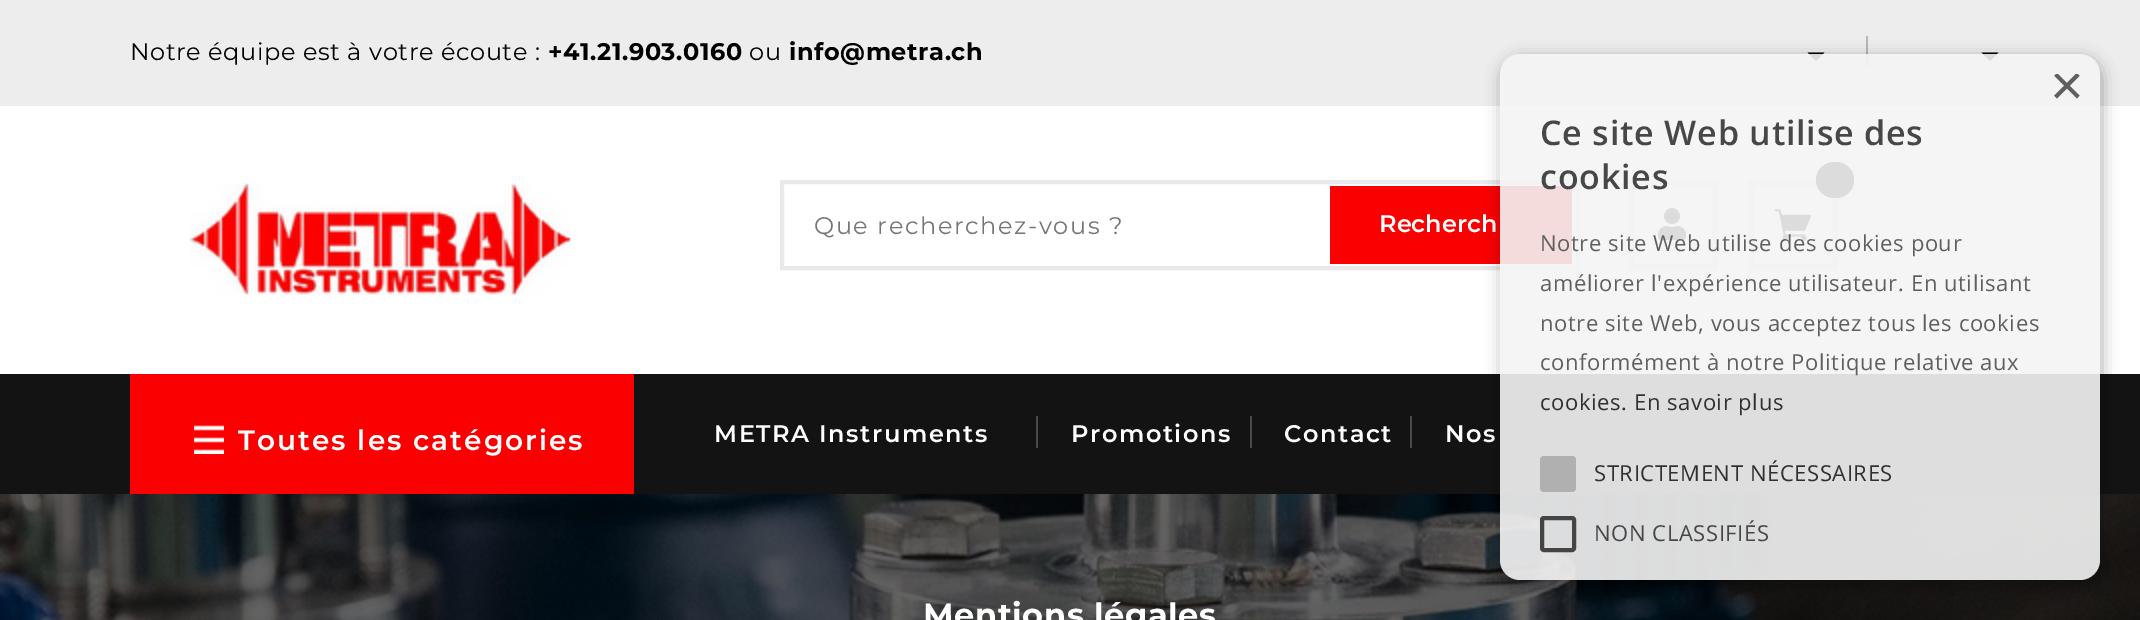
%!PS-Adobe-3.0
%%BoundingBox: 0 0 2140 620
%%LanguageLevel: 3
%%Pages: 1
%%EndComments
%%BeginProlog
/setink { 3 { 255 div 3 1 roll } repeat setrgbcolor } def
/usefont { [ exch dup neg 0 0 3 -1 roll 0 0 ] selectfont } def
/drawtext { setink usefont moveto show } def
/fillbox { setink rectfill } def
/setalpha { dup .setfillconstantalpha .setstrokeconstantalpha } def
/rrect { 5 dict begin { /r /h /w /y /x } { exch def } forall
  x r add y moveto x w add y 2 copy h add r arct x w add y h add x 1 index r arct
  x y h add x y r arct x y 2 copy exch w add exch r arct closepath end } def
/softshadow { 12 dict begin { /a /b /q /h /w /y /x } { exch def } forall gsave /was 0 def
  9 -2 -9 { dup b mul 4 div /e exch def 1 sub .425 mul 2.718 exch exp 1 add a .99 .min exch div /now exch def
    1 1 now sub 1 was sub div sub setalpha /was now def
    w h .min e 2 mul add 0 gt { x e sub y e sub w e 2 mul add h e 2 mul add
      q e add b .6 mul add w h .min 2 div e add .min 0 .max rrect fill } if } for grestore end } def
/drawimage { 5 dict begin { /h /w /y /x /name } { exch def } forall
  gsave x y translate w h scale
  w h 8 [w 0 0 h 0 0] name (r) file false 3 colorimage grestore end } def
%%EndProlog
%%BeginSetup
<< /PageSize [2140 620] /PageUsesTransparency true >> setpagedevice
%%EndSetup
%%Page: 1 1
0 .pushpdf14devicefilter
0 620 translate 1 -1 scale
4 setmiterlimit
0 0 2140 620 255 255 255 fillbox
0 0 2140 106 237 237 237 fillbox
/Montserrat-Regular 24 usefont
0 0 0 setink
130 60 moveto 0.6 0 (Notre équipe est à votre écoute :) ashow
/Montserrat-Bold 24 usefont
548 60 moveto 0.6 0 (+41.21.903.0160) ashow
/Montserrat-Regular 24 usefont
749 60 moveto 0.6 0 (ou) ashow
/Montserrat-Bold 24 usefont
789 60 moveto 0.6 0 (info@metra.ch) ashow
1807.5 52.5 moveto 1824.5 52.5 lineto 1816 61 lineto closepath fill
1866 36 2 30 180 183 184 fillbox
0 0 0 setink
1981.5 52.5 moveto 1998.5 52.5 lineto 1990 61 lineto closepath fill
(assets/img1.rgb) 189 183 382 113 drawimage
233 233 233 setink
4 setlinewidth
782 182 796 86 rectstroke
/Montserrat-Regular 24 usefont
117 117 117 setink
814 234 moveto 1.6 0 (Que recherchez-vous ?) ashow
1330 186 242 78 251 0 1 fillbox
(Recherch) 1379 232 /Montserrat-SemiBold 24 255 255 255 drawtext
(assets/img2.rgb) 1658 208 28 32 drawimage
233 233 233 setink
6 setlinewidth
1631 183 84 84 rectstroke
(assets/img3.rgb) 1774 209 38 32 drawimage
1751 183 84 84 rectstroke
0 0 0 setink
1816 162 38 36 18 rrect fill
0 374 2140 120 19 19 19 fillbox
130 374 504 120 251 0 1 fillbox
(assets/img4.rgb) 194 425 30 29 drawimage
/Montserrat-SemiBold 28 usefont
255 255 255 setink
238 450 moveto 2 0 (Toutes les catégories) ashow
/Montserrat-SemiBold 24 usefont
714 442 moveto 1.6 0 (METRA Instruments) ashow
1036 416 2 32 73 73 73 fillbox
255 255 255 setink
1071 442 moveto 1.6 0 (Promotions) ashow
1250 416 2 32 73 73 73 fillbox
255 255 255 setink
1284 442 moveto 1.6 0 (Contact) ashow
1410 416 2 32 73 73 73 fillbox
255 255 255 setink
1445 442 moveto 1.6 0 (Nos) ashow
(assets/img5.rgb) 0 494 2140 126 drawimage
/Montserrat-Bold 32 usefont
923 626 moveto 0.6 0 (Mentions légales) ashow
gsave
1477 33 moveto 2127 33 lineto 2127 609 lineto 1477 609 lineto closepath 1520 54 moveto 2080 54 lineto 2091 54 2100 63 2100 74 curveto 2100 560 lineto 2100 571 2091 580 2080 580 curveto 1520 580 lineto 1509 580 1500 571 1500 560 curveto 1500 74 lineto 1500 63 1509 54 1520 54 curveto closepath eoclip newpath
0 0 0 setink
1502 58 600 526 20 8 0.32 softshadow
grestore
0.9 setalpha
244 244 244 setink
1500 54 600 526 20 rrect fill
gsave
2050 74 30 30 rectclip
1 setalpha
(×) 2050 105 /LiberationSans-Regular 58 96 95 95 drawtext
grestore
/OpenSans-SemiBold 34 usefont
1 setalpha
71 71 71 setink
1540 145 moveto 0.8 0 (Ce site Web utilise des) ashow
1540 189 moveto 0.8 0 (cookies) ashow
/OpenSans-Regular 22 usefont
96 95 95 setink
1540 251 moveto 0.6 0 (Notre site Web utilise des cookies pour) ashow
1540 291 moveto 0.6 0 (améliorer l'expérience utilisateur. En utilisant) ashow
1540 331 moveto 0.6 0 (notre site Web, vous acceptez tous les cookies) ashow
1540 370 moveto 0.6 0 (conformément à notre Politique relative aux) ashow
48 48 48 setink
1540 410 moveto 0.6 0 (cookies. En savoir plus) ashow
176 176 176 setink
1540 456 36 36 4 rrect fill
48 48 48 setink
1594 481 moveto 0.6 0 (STRICTEMENT NÉCESSAIRES) ashow
0.9 setalpha
51 51 51 setink
4 setlinewidth
1542 518 32 32 2 rrect stroke
1 setalpha
71 71 71 setink
1594 541 moveto 0.6 0 (NON CLASSIFIÉS) ashow
.poppdf14devicefilter showpage
%%EOF
